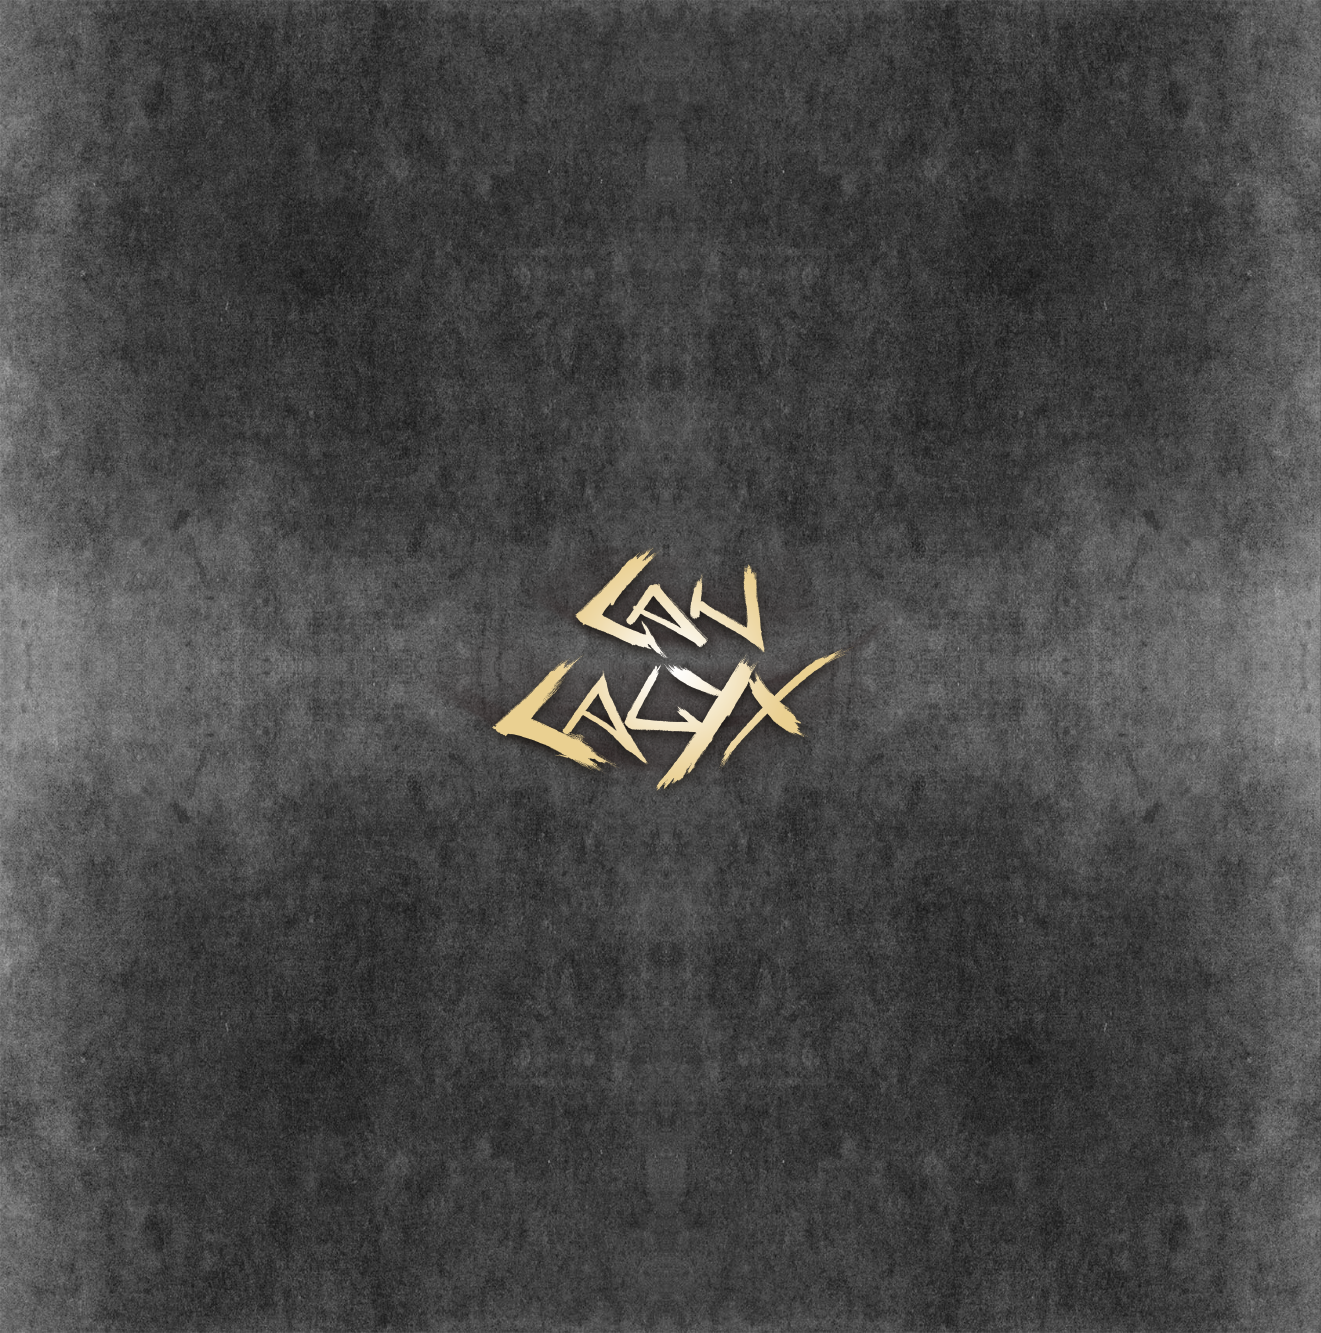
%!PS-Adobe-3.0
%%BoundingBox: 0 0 1321 1333
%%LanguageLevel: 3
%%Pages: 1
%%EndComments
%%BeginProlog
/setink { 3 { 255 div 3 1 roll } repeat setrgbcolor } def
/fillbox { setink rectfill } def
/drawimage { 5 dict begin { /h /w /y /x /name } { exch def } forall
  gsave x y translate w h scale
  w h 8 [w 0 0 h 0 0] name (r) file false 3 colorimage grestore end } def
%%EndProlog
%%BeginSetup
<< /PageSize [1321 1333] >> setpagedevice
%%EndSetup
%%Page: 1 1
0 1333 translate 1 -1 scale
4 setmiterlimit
0 0 1321 1333 255 255 255 fillbox
(assets/img1.rgb) 1320 0 1 1333 drawimage
(assets/img2.rgb) 0 0 1321 1333 drawimage
(assets/img3.rgb) 422 545 472 253 drawimage
showpage
%%EOF
